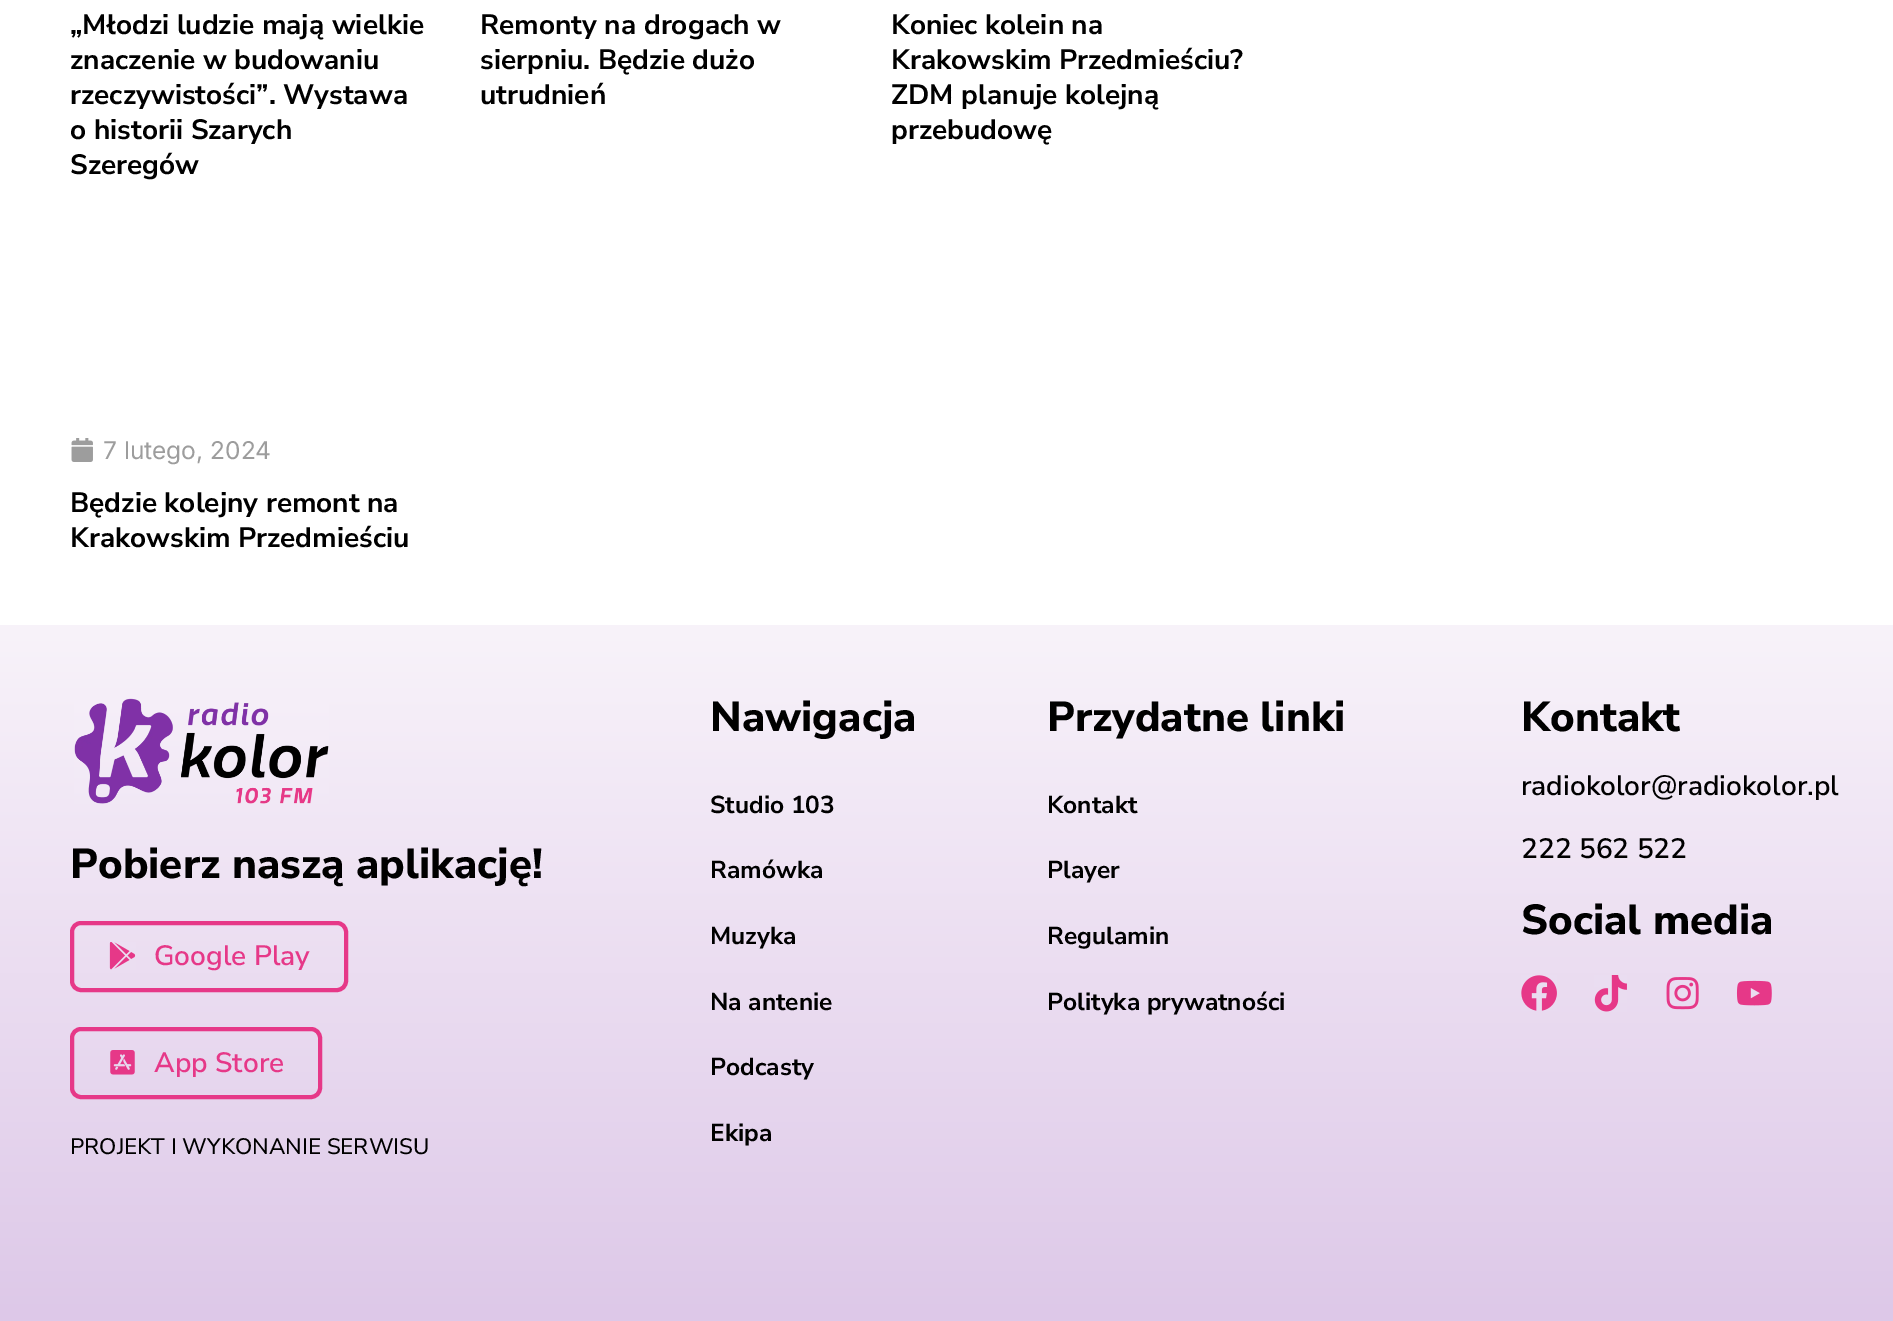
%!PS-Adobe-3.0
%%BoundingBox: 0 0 1893 1321
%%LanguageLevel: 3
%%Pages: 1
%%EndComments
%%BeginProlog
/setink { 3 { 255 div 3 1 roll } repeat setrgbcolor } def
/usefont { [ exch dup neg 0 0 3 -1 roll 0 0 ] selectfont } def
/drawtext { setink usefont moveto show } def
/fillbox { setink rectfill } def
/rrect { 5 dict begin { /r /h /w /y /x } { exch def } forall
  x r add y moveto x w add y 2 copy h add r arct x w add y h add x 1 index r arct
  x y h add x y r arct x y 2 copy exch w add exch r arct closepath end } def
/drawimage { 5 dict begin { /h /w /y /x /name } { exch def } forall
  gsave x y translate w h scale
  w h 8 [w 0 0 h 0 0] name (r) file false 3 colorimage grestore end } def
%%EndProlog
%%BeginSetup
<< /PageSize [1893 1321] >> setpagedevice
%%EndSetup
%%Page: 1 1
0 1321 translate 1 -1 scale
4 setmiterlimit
0 0 1893 1321 255 255 255 fillbox
(„Młodzi ludzie mają wielkie) 70 34 /NunitoSans-Bold 28 0 0 0 drawtext
(znaczenie w budowaniu) 70 69 /NunitoSans-Bold 28 0 0 0 drawtext
(rzeczywistości”. Wystawa) 70 104 /NunitoSans-Bold 28 0 0 0 drawtext
(o historii Szarych) 70 139 /NunitoSans-Bold 28 0 0 0 drawtext
(Szeregów) 70 174 /NunitoSans-Bold 28 0 0 0 drawtext
(Remonty na drogach w) 480 34 /NunitoSans-Bold 28 0 0 0 drawtext
(sierpniu. Będzie dużo) 480 69 /NunitoSans-Bold 28 0 0 0 drawtext
(utrudnień) 480 104 /NunitoSans-Bold 28 0 0 0 drawtext
(Koniec kolein na) 891 34 /NunitoSans-Bold 28 0 0 0 drawtext
(Krakowskim Przedmieściu?) 891 69 /NunitoSans-Bold 28 0 0 0 drawtext
(ZDM planuje kolejną) 891 104 /NunitoSans-Bold 28 0 0 0 drawtext
(przebudowę) 891 139 /NunitoSans-Bold 28 0 0 0 drawtext
(assets/img1.rgb) 71 438 22 24 drawimage
(7 lutego, 2024) 103 459 /Inter-Regular 24.5 157 157 157 drawtext
(Będzie kolejny remont na) 70 512 /NunitoSans-Bold 28 0 0 0 drawtext
(Krakowskim Przedmieściu) 70 547 /NunitoSans-Bold 28 0 0 0 drawtext
gsave 0 625 moveto 1893 625 lineto 1893 1321 lineto 0 1321 lineto closepath clip newpath
<< /ShadingType 2 /ColorSpace /DeviceRGB /Coords [947 625 947 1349] /Extend [true true] /Function << /FunctionType 2 /Domain [0 1] /C0 [0.973 0.953 0.98] /C1 [0.863 0.776 0.906] /N 1 >> >> shfill grestore
(Nawigacja) 710 731 /NunitoSans-ExtraBold 42 0 0 0 drawtext
(Studio 103) 710 813 /NunitoSans-Bold 24.5 0 0 0 drawtext
(Ramówka) 710 878 /NunitoSans-Bold 24.5 0 0 0 drawtext
(Muzyka) 710 944 /NunitoSans-Bold 24.5 0 0 0 drawtext
(Na antenie) 710 1010 /NunitoSans-Bold 24.5 0 0 0 drawtext
(Podcasty) 710 1075 /NunitoSans-Bold 24.5 0 0 0 drawtext
(Ekipa) 710 1141 /NunitoSans-Bold 24.5 0 0 0 drawtext
(Przydatne linki) 1047 731 /NunitoSans-ExtraBold 42 0 0 0 drawtext
(Kontakt) 1047 813 /NunitoSans-Bold 24.5 0 0 0 drawtext
(Player) 1047 878 /NunitoSans-Bold 24.5 0 0 0 drawtext
(Regulamin) 1047 944 /NunitoSans-Bold 24.5 0 0 0 drawtext
(Polityka prywatności) 1047 1010 /NunitoSans-Bold 24.5 0 0 0 drawtext
(Kontakt) 1521 731 /NunitoSans-ExtraBold 42 0 0 0 drawtext
(radiokolor@radiokolor.pl) 1521 795 /NunitoSans-SemiBold 28 0 0 0 drawtext
(222 562 522) 1521 858 /NunitoSans-SemiBold 28 0 0 0 drawtext
(Social media) 1521 934 /NunitoSans-ExtraBold 42 0 0 0 drawtext
(assets/img2.rgb) 1521 975 36 36 drawimage
(assets/img3.rgb) 1594 975 33 37 drawimage
(assets/img4.rgb) 1666 977 33 33 drawimage
(assets/img5.rgb) 1736 980 36 26 drawimage
(assets/img6.rgb) 74 698 255 106 drawimage
(Pobierz naszą aplikację!) 70 878 /NunitoSans-ExtraBold 42 0 0 0 drawtext
230 56 136 setink
4 setlinewidth
72 923 274 67 9 rrect stroke
(assets/img7.rgb) 109 942 27 28 drawimage
(Google Play) 154 965 /NunitoSans-SemiBold 28 230 56 136 drawtext
72 1029 248 68 9 rrect stroke
(assets/img8.rgb) 110 1050 25 25 drawimage
(App Store) 154 1072 /NunitoSans-SemiBold 28 230 56 136 drawtext
(PROJEKT I WYKONANIE SERWISU) 70 1154 /NunitoSans-Medium 22.4 0 0 0 drawtext
showpage
%%EOF
